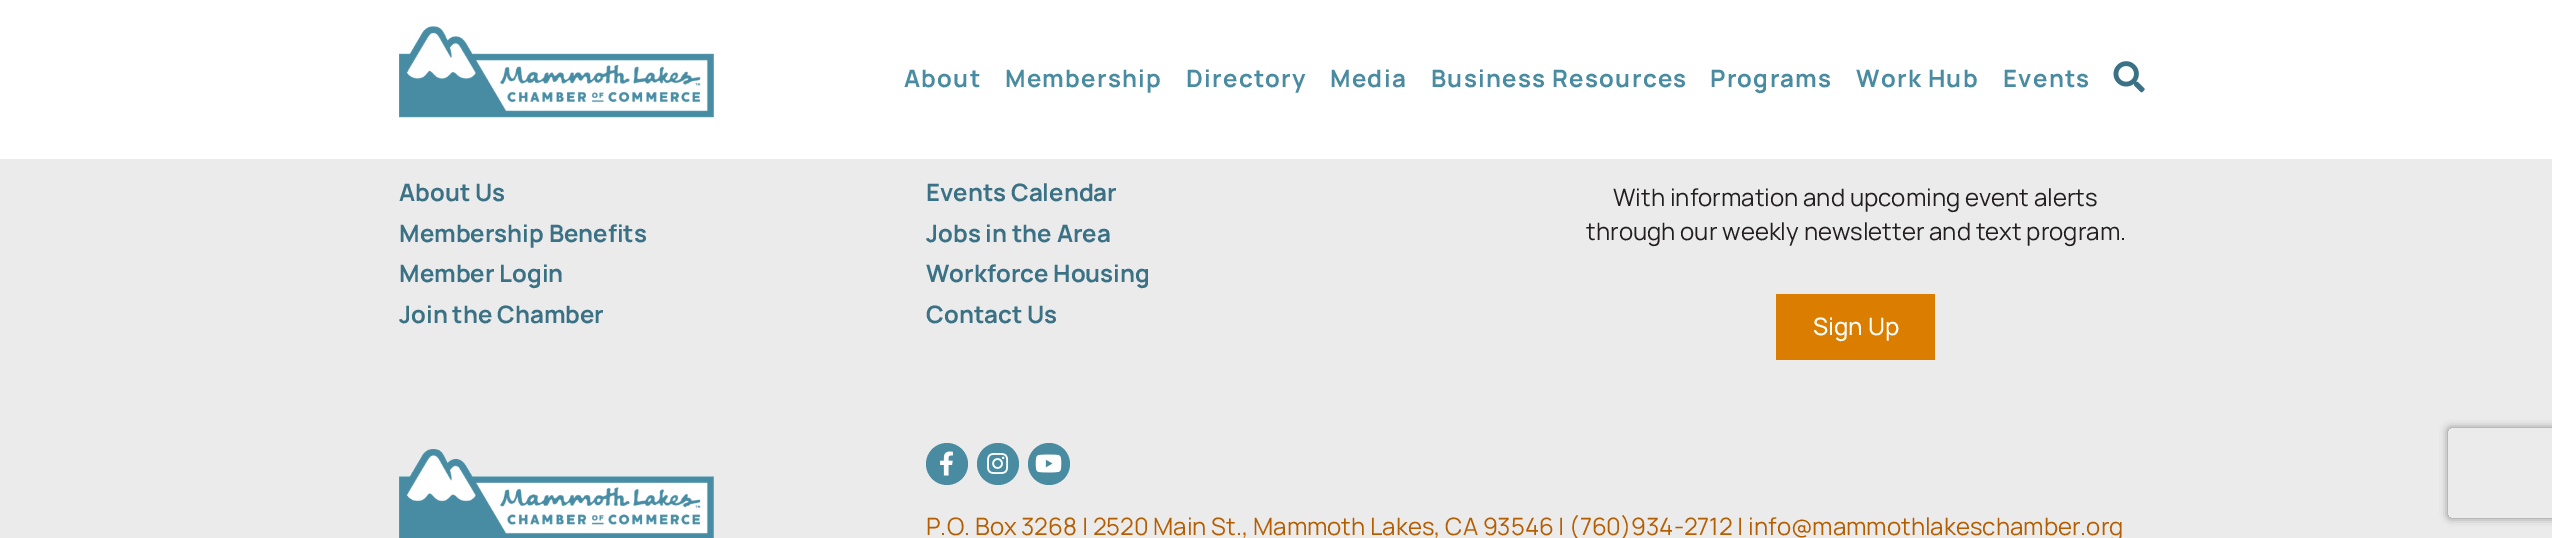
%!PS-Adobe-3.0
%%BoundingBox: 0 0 2552 538
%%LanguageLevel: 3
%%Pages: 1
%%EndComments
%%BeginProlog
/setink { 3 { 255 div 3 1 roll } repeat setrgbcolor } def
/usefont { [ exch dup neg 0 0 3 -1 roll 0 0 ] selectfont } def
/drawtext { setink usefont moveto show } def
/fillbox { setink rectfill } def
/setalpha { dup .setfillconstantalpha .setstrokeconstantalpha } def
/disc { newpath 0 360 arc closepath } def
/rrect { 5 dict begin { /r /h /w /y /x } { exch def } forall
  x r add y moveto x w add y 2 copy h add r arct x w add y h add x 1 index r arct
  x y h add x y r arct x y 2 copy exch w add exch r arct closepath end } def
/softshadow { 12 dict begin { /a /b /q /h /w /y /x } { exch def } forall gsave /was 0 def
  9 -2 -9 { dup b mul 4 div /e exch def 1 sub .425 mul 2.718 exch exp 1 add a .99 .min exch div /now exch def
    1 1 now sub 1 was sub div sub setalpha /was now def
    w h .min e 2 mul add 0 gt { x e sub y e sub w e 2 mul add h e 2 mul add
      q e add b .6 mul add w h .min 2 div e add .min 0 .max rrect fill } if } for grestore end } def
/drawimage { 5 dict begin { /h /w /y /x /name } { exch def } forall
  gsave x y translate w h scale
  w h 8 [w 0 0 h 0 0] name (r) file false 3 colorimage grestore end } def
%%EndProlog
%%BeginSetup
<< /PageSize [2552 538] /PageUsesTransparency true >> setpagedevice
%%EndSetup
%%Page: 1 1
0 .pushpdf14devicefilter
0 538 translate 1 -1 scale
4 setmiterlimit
0 0 2552 538 235 235 235 fillbox
0 0 2552 159 255 255 255 fillbox
(assets/img1.rgb) 399 26 315 92 drawimage
/Manrope-Bold 24 usefont
73 139 161 setink
904 87 moveto 1.25 0 (About) ashow
1005 87 moveto 1.25 0 (Membership) ashow
1186 87 moveto 1.25 0 (Directory) ashow
1330 87 moveto 1.25 0 (Media) ashow
1431 87 moveto 1.25 0 (Business Resources) ashow
1710 87 moveto 1.25 0 (Programs) ashow
1856 87 moveto 1.25 0 (Work Hub) ashow
2003 87 moveto 1.25 0 (Events) ashow
(assets/img2.rgb) 2113 61 32 32 drawimage
(About Us) 399 201 /Manrope-Bold 24 58 113 132 drawtext
(Membership Benefits) 399 242 /Manrope-Bold 24 58 113 132 drawtext
(Member Login) 399 282 /Manrope-Bold 24 58 113 132 drawtext
(Join the Chamber) 399 323 /Manrope-Bold 24 58 113 132 drawtext
(Events Calendar) 926 201 /Manrope-Bold 24 58 113 132 drawtext
(Jobs in the Area) 926 242 /Manrope-Bold 24 58 113 132 drawtext
(Workforce Housing) 926 282 /Manrope-Bold 24 58 113 132 drawtext
(Contact Us) 926 323 /Manrope-Bold 24 58 113 132 drawtext
(With information and upcoming event alerts) 1613 206 /Manrope-Regular 24 35 31 32 drawtext
(through our weekly newsletter and text program.) 1586 240 /Manrope-Regular 24 35 31 32 drawtext
1776 294 159 66 219 126 0 fillbox
(Sign Up) 1813 335 /Manrope-Medium 24 255 255 255 drawtext
(assets/img3.rgb) 399 449 315 89 drawimage
73 139 161 setink
947 464 21 disc fill
(assets/img4.rgb) 940 451 13 25 drawimage
998 464 21 disc fill
(assets/img5.rgb) 987 453 22 21 drawimage
1049 464 21 disc fill
(assets/img6.rgb) 1035 454 27 19 drawimage
(P.O. Box 3268 | 2520 Main St., Mammoth Lakes, CA 93546 | \(760\)934-2712 | info@mammothlakeschamber.org) 926 535 /Manrope-Regular 24 180 94 0 drawtext
gsave
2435 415 moveto 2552 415 lineto 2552 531 lineto 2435 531 lineto closepath 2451 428 moveto 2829 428 lineto 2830.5 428 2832 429.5 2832 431 curveto 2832 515 lineto 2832 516.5 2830.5 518 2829 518 curveto 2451 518 lineto 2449.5 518 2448 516.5 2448 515 curveto 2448 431 lineto 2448 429.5 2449.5 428 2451 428 curveto closepath eoclip newpath
128 128 128 setink
2448 428 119 90 3 4 1 softshadow
grestore
.poppdf14devicefilter showpage
%%EOF
